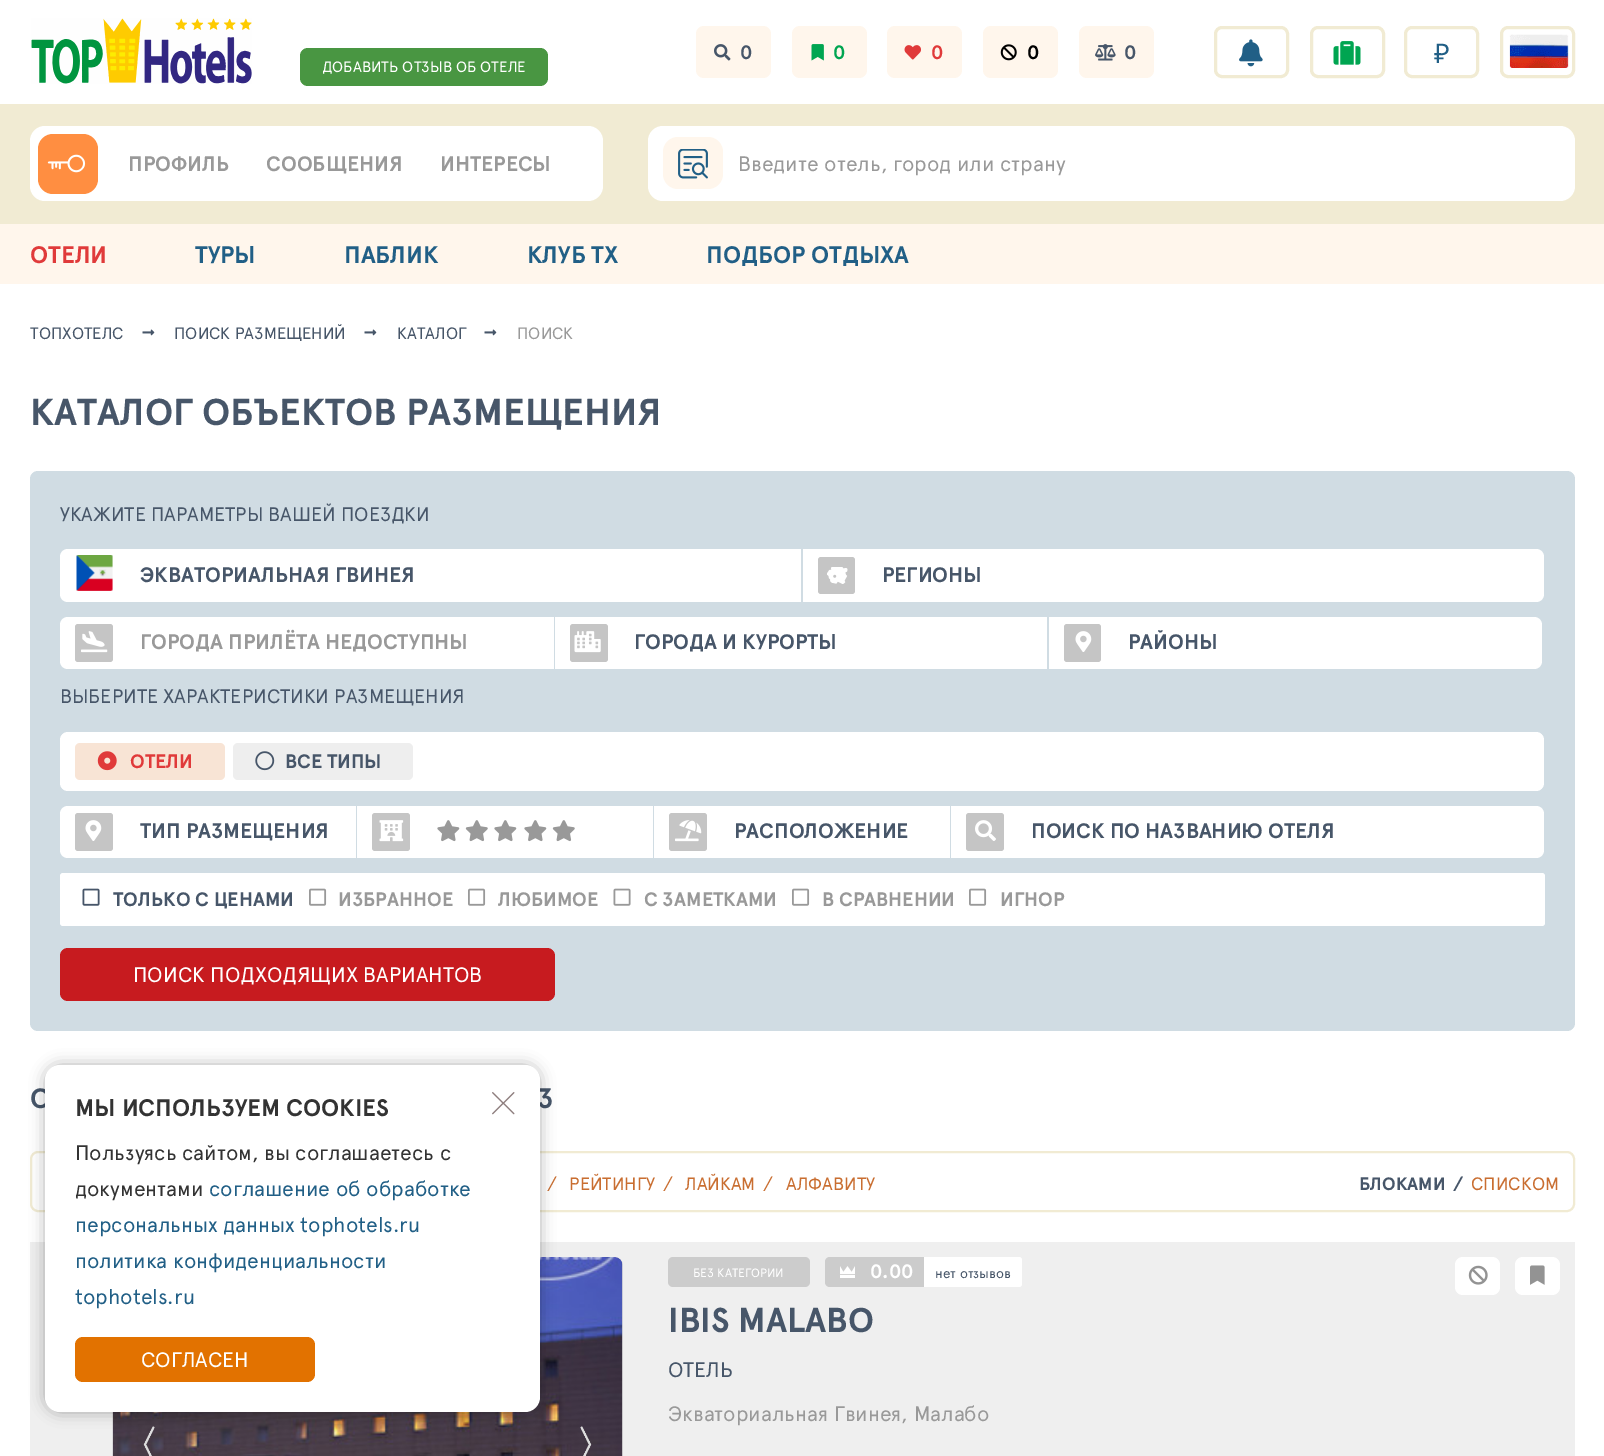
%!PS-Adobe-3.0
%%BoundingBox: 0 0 1604 1456
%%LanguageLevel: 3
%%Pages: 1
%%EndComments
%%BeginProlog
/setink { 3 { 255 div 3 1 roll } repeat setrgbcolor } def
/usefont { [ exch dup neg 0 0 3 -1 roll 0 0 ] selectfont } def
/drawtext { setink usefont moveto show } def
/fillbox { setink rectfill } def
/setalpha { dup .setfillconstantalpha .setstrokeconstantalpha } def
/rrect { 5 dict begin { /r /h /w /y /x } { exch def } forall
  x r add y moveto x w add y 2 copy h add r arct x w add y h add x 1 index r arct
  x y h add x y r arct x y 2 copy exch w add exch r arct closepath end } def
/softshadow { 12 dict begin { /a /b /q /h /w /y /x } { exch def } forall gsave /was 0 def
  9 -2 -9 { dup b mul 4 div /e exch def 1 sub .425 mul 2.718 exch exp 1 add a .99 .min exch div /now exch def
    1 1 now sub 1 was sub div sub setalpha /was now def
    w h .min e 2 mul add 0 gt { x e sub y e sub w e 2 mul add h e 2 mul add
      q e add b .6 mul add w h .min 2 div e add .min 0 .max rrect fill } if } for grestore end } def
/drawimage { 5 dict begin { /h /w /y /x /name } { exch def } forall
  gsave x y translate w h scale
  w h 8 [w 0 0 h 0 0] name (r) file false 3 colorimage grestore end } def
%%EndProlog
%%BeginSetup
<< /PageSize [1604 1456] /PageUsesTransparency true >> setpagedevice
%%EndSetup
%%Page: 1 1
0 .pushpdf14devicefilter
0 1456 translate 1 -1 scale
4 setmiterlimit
0 0 1604 1456 255 255 255 fillbox
(assets/img1.rgb) 31 18 221 66 drawimage
255 246 236 setink
696 26 75 52 8 rrect fill
(assets/img2.rgb) 714 44 17 17 drawimage
(0) 740 59 /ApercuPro-Bold 19.5 71 86 105 drawtext
255 246 236 setink
792 26 75 52 8 rrect fill
(assets/img3.rgb) 811 44 13 17 drawimage
(0) 833 59 /ApercuPro-Bold 19.5 0 165 81 drawtext
255 246 236 setink
887 26 75 52 8 rrect fill
(assets/img4.rgb) 904 45 17 15 drawimage
(0) 931 59 /ApercuPro-Bold 19.5 224 58 58 drawtext
255 246 236 setink
983 26 75 52 8 rrect fill
(assets/img5.rgb) 1000 44 17 17 drawimage
(0) 1027 59 /ApercuPro-Bold 19.5 0 0 0 drawtext
255 246 236 setink
1079 26 75 52 8 rrect fill
(assets/img6.rgb) 1095 44 21 17 drawimage
(0) 1124 59 /ApercuPro-Bold 19.5 71 86 105 drawtext
241 235 211 setink
3 setlinewidth
1215.5 27.5 72 49 6.5 rrect stroke
(assets/img7.rgb) 1239 39 24 28 drawimage
1311.5 27.5 72 49 6.5 rrect stroke
(assets/img8.rgb) 1333 41 28 24 drawimage
1405.5 27.5 72 49 6.5 rrect stroke
(₽) 1434 63 /NotoSans-Regular 27 33 95 134 drawtext
241 235 211 setink
1501.5 27.5 72 49 6.5 rrect stroke
(assets/img9.rgb) 1509 34 60 34 drawimage
73 150 66 setink
300 48 248 38 8 rrect fill
(ДОБАВИТЬ ОТЗЫВ ОБ ОТЕЛЕ) 322 72 /ApercuPro-Regular 15 255 255 255 drawtext
0 104 1604 120 241 235 211 fillbox
255 255 255 setink
30 126 573 75 15 rrect fill
255 142 65 setink
38 134 60 60 15 rrect fill
(assets/img10.rgb) 47 154 39 19 drawimage
(ПРОФИЛЬ) 128 171 /ApercuPro-Bold 21 153 153 153 drawtext
(СООБЩЕНИЯ) 266 171 /ApercuPro-Bold 21 153 153 153 drawtext
(ИНТЕРЕСЫ) 440 171 /ApercuPro-Bold 21 153 153 153 drawtext
255 255 255 setink
648 126 927 75 15 rrect fill
255 246 236 setink
663 137 60 52 15 rrect fill
(assets/img11.rgb) 678 149 30 30 drawimage
(Введите отель, город или страну) 738 171 /ApercuPro-Regular 21 153 153 153 drawtext
0 224 1604 60 255 246 236 fillbox
(ОТЕЛИ) 30 263 /ApercuPro-Bold 24 224 58 58 drawtext
(ТУРЫ) 195 263 /ApercuPro-Bold 24 33 95 134 drawtext
(ПАБЛИК) 344 263 /ApercuPro-Bold 24 33 95 134 drawtext
(КЛУБ ТХ) 527 263 /ApercuPro-Bold 24 33 95 134 drawtext
(ПОДБОР ОТДЫХА) 706 263 /ApercuPro-Bold 24 33 95 134 drawtext
(ТОПХОТЕЛС) 30 339 /ApercuPro-Regular 16.5 71 86 105 drawtext
(assets/img12.rgb) 142 329 13 7 drawimage
(ПОИСК РАЗМЕЩЕНИЙ) 174 339 /ApercuPro-Regular 16.5 71 86 105 drawtext
(assets/img12.rgb) 364 329 13 7 drawimage
(КАТАЛОГ) 397 339 /ApercuPro-Regular 16.5 71 86 105 drawtext
(assets/img12.rgb) 484 329 13 7 drawimage
(ПОИСК) 517 339 /ApercuPro-Regular 16.5 153 153 153 drawtext
(КАТАЛОГ ОБЪЕКТОВ РАЗМЕЩЕНИЯ) 30 425 /ApercuPro-Bold 37.5 71 86 105 drawtext
208 220 227 setink
30 471 1545 560 8 rrect fill
(УКАЖИТЕ ПАРАМЕТРЫ ВАШЕЙ ПОЕЗДКИ) 60 521 /ApercuPro-Regular 19.5 71 86 105 drawtext
255 255 255 setink
68 549 moveto 801 549 lineto 801 602 lineto 68 602 lineto 63.5 602 60 598.5 60 594 curveto 60 557 lineto 60 552.5 63.5 549 68 549 curveto closepath fill
(assets/img13.rgb) 76 555 37 36 drawimage
(ЭКВАТОРИАЛЬНАЯ ГВИНЕЯ) 140 582 /ApercuPro-Bold 21 71 86 105 drawtext
255 255 255 setink
803 549 moveto 1536 549 lineto 1540.5 549 1544 552.5 1544 557 curveto 1544 594 lineto 1544 598.5 1540.5 602 1536 602 curveto 803 602 lineto closepath fill
197 197 197 setink
818 557 37 37 3 rrect fill
(assets/img14.rgb) 827 567 21 17 drawimage
(РЕГИОНЫ) 882 582 /ApercuPro-Bold 21 71 86 105 drawtext
255 255 255 setink
68 617 moveto 554 617 lineto 554 669 lineto 68 669 lineto 63.5 669 60 665.5 60 661 curveto 60 625 lineto 60 620.5 63.5 617 68 617 curveto closepath fill
197 197 197 setink
75 624 38 38 3 rrect fill
(assets/img15.rgb) 81 631 27 22 drawimage
(ГОРОДА ПРИЛЁТА НЕДОСТУПНЫ) 140 649 /ApercuPro-Bold 21 153 153 153 drawtext
555 617 492 52 255 255 255 fillbox
197 197 197 setink
570 624 38 38 3 rrect fill
(assets/img16.rgb) 574 631 27 22 drawimage
(ГОРОДА И КУРОРТЫ) 634 649 /ApercuPro-Bold 21 71 86 105 drawtext
255 255 255 setink
1049 617 moveto 1534 617 lineto 1538.5 617 1542 620.5 1542 625 curveto 1542 661 lineto 1542 665.5 1538.5 669 1534 669 curveto 1049 669 lineto closepath fill
197 197 197 setink
1064 624 37 38 3 rrect fill
(assets/img17.rgb) 1075 631 17 21 drawimage
(РАЙОНЫ) 1128 649 /ApercuPro-Bold 21 71 86 105 drawtext
(ВЫБЕРИТЕ ХАРАКТЕРИСТИКИ РАЗМЕЩЕНИЯ) 60 703 /ApercuPro-Regular 19.5 71 86 105 drawtext
255 255 255 setink
60 732 1484 59 8 rrect fill
248 228 213 setink
75 743 150 37 5 rrect fill
(assets/img18.rgb) 97 751 20 20 drawimage
(ОТЕЛИ) 130 768 /ApercuPro-Bold 19.5 224 58 58 drawtext
238 238 238 setink
233 743 180 37 5 rrect fill
(assets/img19.rgb) 255 751 20 20 drawimage
(ВСЕ ТИПЫ) 285 768 /ApercuPro-Bold 19.5 71 86 105 drawtext
255 255 255 setink
68 806 moveto 356 806 lineto 356 858 lineto 68 858 lineto 63.5 858 60 854.5 60 850 curveto 60 814 lineto 60 809.5 63.5 806 68 806 curveto closepath fill
197 197 197 setink
75 813 38 38 3 rrect fill
(assets/img17.rgb) 85 820 17 21 drawimage
gsave
140 806 205 52 3 rrect clip newpath
(ТИП РАЗМЕЩЕНИЯ) 140 838 /ApercuPro-Bold 21 71 86 105 drawtext
grestore
357 806 296 52 255 255 255 fillbox
(assets/img20.rgb) 437 820 23 22 drawimage
(assets/img21.rgb) 465 820 23 22 drawimage
(assets/img20.rgb) 494 820 23 22 drawimage
(assets/img20.rgb) 524 820 23 22 drawimage
(assets/img21.rgb) 552 820 23 22 drawimage
197 197 197 setink
372 813 38 38 3 rrect fill
(assets/img22.rgb) 379 820 25 22 drawimage
654 806 296 52 255 255 255 fillbox
197 197 197 setink
669 813 38 38 3 rrect fill
(assets/img23.rgb) 675 820 27 22 drawimage
(РАСПОЛОЖЕНИЕ) 734 838 /ApercuPro-Bold 21 71 86 105 drawtext
255 255 255 setink
951 806 moveto 1536 806 lineto 1540.5 806 1544 809.5 1544 814 curveto 1544 850 lineto 1544 854.5 1540.5 858 1536 858 curveto 951 858 lineto closepath fill
197 197 197 setink
966 813 38 38 3 rrect fill
(assets/img24.rgb) 975 820 21 21 drawimage
(ПОИСК ПО НАЗВАНИЮ ОТЕЛЯ) 1031 838 /ApercuPro-Bold 21 71 86 105 drawtext
255 255 255 setink
60 873 1485 53 3 rrect fill
(assets/img25.rgb) 82 888 18 18 drawimage
(ТОЛЬКО С ЦЕНАМИ) 113 906 /ApercuPro-Bold 19.5 71 86 105 drawtext
(assets/img26.rgb) 309 888 18 18 drawimage
(ИЗБРАННОЕ) 338 906 /ApercuPro-Bold 19.5 153 153 153 drawtext
(assets/img26.rgb) 468 888 18 18 drawimage
(ЛЮБИМОЕ) 498 906 /ApercuPro-Bold 19.5 153 153 153 drawtext
(assets/img27.rgb) 613 888 18 18 drawimage
(С ЗАМЕТКАМИ) 644 906 /ApercuPro-Bold 19.5 153 153 153 drawtext
(assets/img26.rgb) 792 888 18 18 drawimage
(В СРАВНЕНИИ) 822 906 /ApercuPro-Bold 19.5 153 153 153 drawtext
(assets/img26.rgb) 969 888 18 18 drawimage
(ИГНОР) 1000 906 /ApercuPro-Bold 19.5 153 153 153 drawtext
199 27 31 setink
60 948 495 53 8 rrect fill
(ПОИСК ПОДХОДЯЩИХ ВАРИАНТОВ) 133 982 /ApercuPro-Regular 21 255 255 255 drawtext
(О) 30 1108 /ApercuPro-Bold 28 71 86 105 drawtext
(3) 537 1108 /ApercuPro-Bold 28 71 86 105 drawtext
241 235 211 setink
2 setlinewidth
31 1152 1543 59 7 rrect stroke
(/) 547 1190 /ApercuPro-Regular 18 201 110 49 drawtext
(РЕЙТИНГУ) 569 1190 /ApercuPro-Regular 18 201 110 49 drawtext
(/) 663 1190 /ApercuPro-Regular 18 201 110 49 drawtext
(ЛАЙКАМ) 685 1190 /ApercuPro-Regular 18 201 110 49 drawtext
(/) 763 1190 /ApercuPro-Regular 18 201 110 49 drawtext
(АЛФАВИТУ) 786 1190 /ApercuPro-Regular 18 201 110 49 drawtext
(БЛОКАМИ) 1359 1190 /ApercuPro-Bold 18 71 86 105 drawtext
(/) 1453 1190 /ApercuPro-Bold 18 71 86 105 drawtext
(СПИСКОМ) 1471 1190 /ApercuPro-Regular 18 201 110 49 drawtext
30 1242 1545 214 239 239 239 fillbox
220 220 220 setink
113 1257 510 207 8 rrect fill
(assets/img28.rgb) 112 1257 511 199 drawimage
(assets/img29.rgb) 143 1426 12 30 drawimage
(assets/img30.rgb) 580 1426 12 30 drawimage
255 255 255 setink
1455 1257 45 38 8 rrect fill
(assets/img31.rgb) 1468 1265 20 20 drawimage
1515 1257 45 38 8 rrect fill
(assets/img32.rgb) 1530 1265 15 20 drawimage
204 204 204 setink
668 1257 142 30 5 rrect fill
(БЕЗ КАТЕГОРИИ) 693 1277 /ApercuPro-Regular 12 255 255 255 drawtext
204 204 204 setink
830 1257 moveto 929 1257 lineto 929 1287 lineto 830 1287 lineto 827 1287 825 1285 825 1282 curveto 825 1262 lineto 825 1259 827 1257 830 1257 curveto closepath fill
(assets/img33.rgb) 840 1266 15 12 drawimage
(0.00) 870 1278 /ApercuPro-Bold 19.5 255 255 255 drawtext
924 1257 moveto 1019 1257 lineto 1020.5 1257 1022 1258.5 1022 1260 curveto 1022 1284 lineto 1022 1285.5 1020.5 1287 1019 1287 curveto 924 1287 lineto closepath fill
(нет отзывов) 935 1278 /ApercuPro-Regular 13.5 71 86 105 drawtext
(IBIS MALABO) 668 1332 /ApercuPro-Bold 34.5 71 86 105 drawtext
(ОТЕЛЬ) 668 1377 /ApercuPro-Regular 21 71 86 105 drawtext
(Экваториальная Гвинея, Малабо) 668 1421 /ApercuPro-Regular 21 153 153 153 drawtext
0 0 0 setink
45 1065 495 347 15 7.5 0.3 softshadow
255 255 255 setink
45 1065 495 347 15 rrect fill
(МЫ ИСПОЛЬЗУЕМ COOKIES) 75 1116 /ApercuPro-Bold 24 51 51 51 drawtext
(assets/img34.rgb) 492 1092 23 23 drawimage
(Пользуясь сайтом, вы соглашаетесь с) 75 1160 /ApercuPro-Regular 21 51 51 51 drawtext
(документами) 75 1196 /ApercuPro-Regular 21 51 51 51 drawtext
(соглашение об обработке) 209 1196 /ApercuPro-Regular 21 33 95 134 drawtext
(персональных данных tophotels.ru) 75 1232 /ApercuPro-Regular 21 33 95 134 drawtext
(политика конфиденциальности) 75 1268 /ApercuPro-Regular 21 33 95 134 drawtext
(tophotels.ru) 75 1304 /ApercuPro-Regular 21 33 95 134 drawtext
226 114 0 setink
75 1337 240 45 8 rrect fill
(СОГЛАСЕН) 141 1367 /ApercuPro-Regular 21 255 255 255 drawtext
.poppdf14devicefilter showpage
%%EOF
